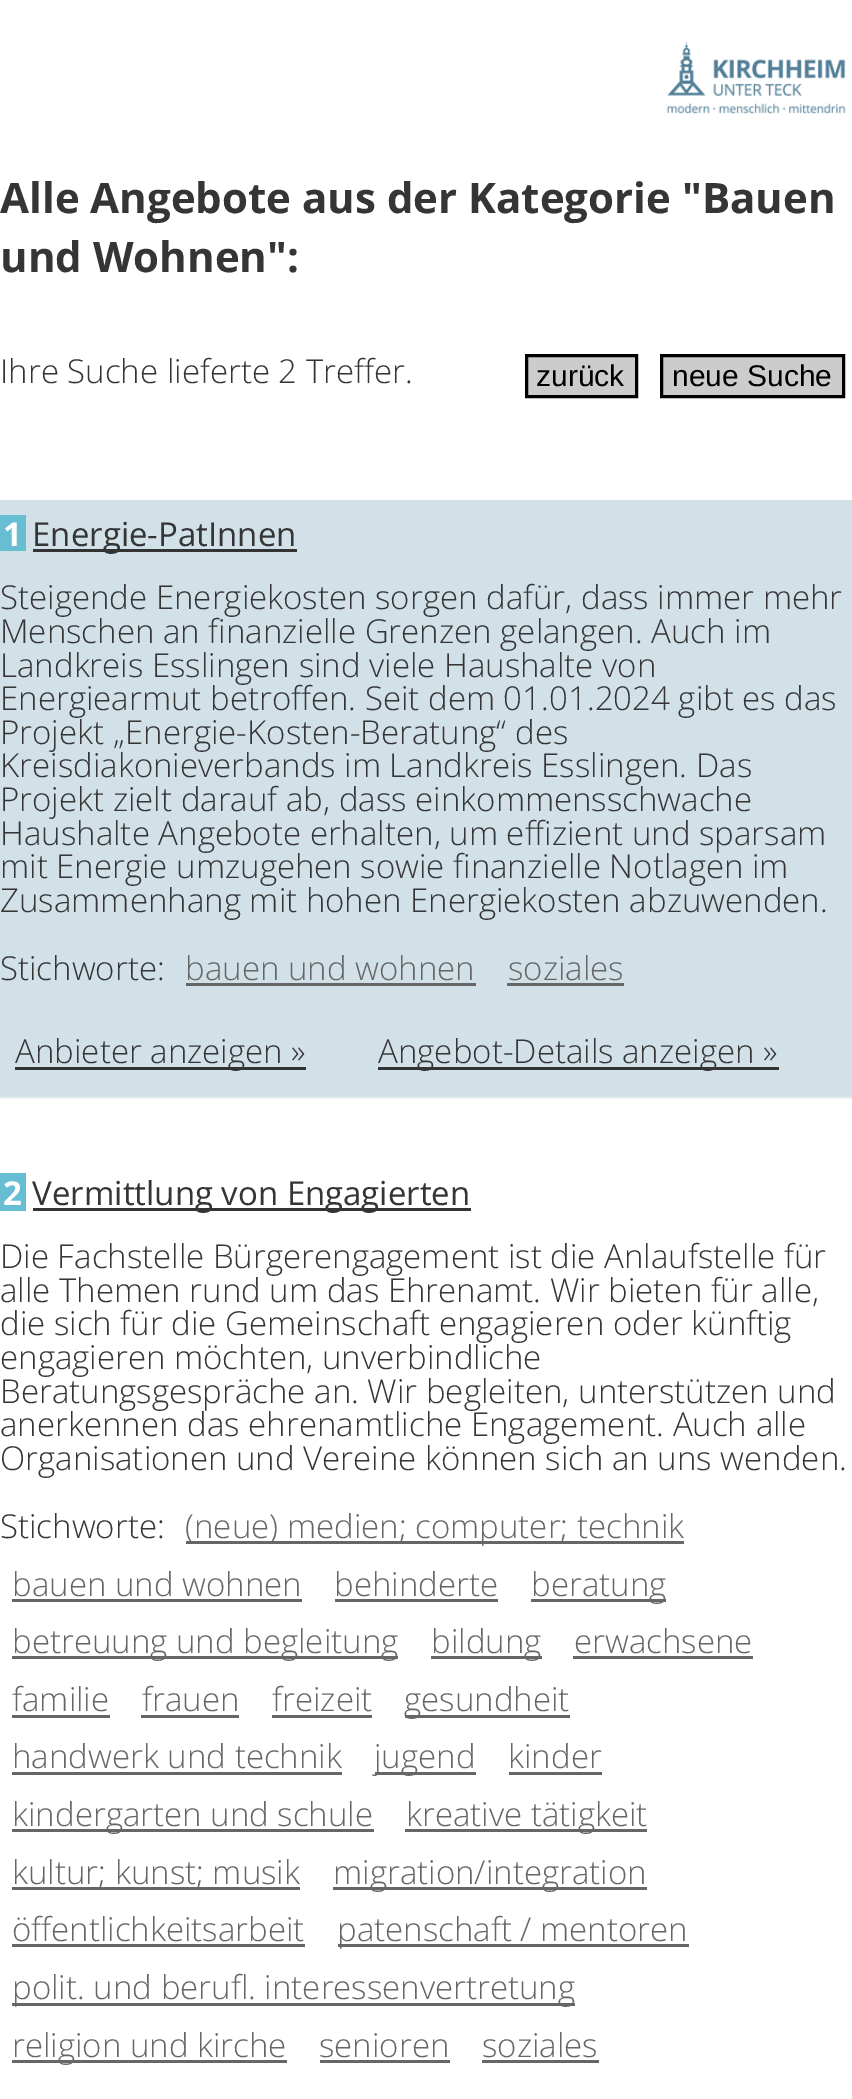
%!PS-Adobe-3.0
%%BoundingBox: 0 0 852 2099
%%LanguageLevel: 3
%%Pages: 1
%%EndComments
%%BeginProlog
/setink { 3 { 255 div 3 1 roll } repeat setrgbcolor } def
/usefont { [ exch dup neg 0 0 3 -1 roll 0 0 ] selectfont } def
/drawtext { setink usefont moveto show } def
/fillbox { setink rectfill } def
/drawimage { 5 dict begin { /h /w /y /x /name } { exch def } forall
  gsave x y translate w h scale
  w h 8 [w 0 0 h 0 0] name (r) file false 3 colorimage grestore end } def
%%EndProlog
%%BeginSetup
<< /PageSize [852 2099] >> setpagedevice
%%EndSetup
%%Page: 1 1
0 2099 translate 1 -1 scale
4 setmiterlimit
0 0 852 2099 255 255 255 fillbox
(assets/img1.rgb) 666 41 180 73 drawimage
(Alle Angebote aus der Kategorie "Bauen) 0 213 /OpenSans-Bold 42 53 53 53 drawtext
(und Wohnen":) 0 272 /OpenSans-Bold 42 53 53 53 drawtext
(Ihre Suche lieferte 2 Treffer.) 0 383 /OpenSans-Light 33 53 53 53 drawtext
204 204 204 setink
526.5 355.5 moveto 636.5 355.5 lineto 636.5 396.5 lineto 526.5 396.5 lineto closepath gsave fill grestore
0 0 0 setink
3 setlinewidth
stroke
(zurück) 536 386 /LiberationSans-Regular 30 0 0 0 drawtext
204 204 204 setink
661.5 355.5 moveto 843.5 355.5 lineto 843.5 396.5 lineto 661.5 396.5 lineto closepath gsave fill grestore
0 0 0 setink
stroke
(neue Suche) 672 386 /LiberationSans-Regular 30 0 0 0 drawtext
0 500 852 597 210 225 232 fillbox
0 1097 852 2 238 238 238 fillbox
0 515 26 36 103 189 209 fillbox
(1) 3 546 /OpenSans-Bold 33 255 255 255 drawtext
33 549 264 3 51 51 51 fillbox
(Energie-PatInnen) 32 546 /OpenSans-Regular 33 53 53 53 drawtext
(Steigende Energiekosten sorgen dafür, dass immer mehr) 0 609 /OpenSans-Light 33 53 53 53 drawtext
(Menschen an finanzielle Grenzen gelangen. Auch im) 0 643 /OpenSans-Light 33 53 53 53 drawtext
(Landkreis Esslingen sind viele Haushalte von) 0 677 /OpenSans-Light 33 53 53 53 drawtext
(Energiearmut betroffen. Seit dem 01.01.2024 gibt es das) 0 710 /OpenSans-Light 33 53 53 53 drawtext
(Projekt „Energie-Kosten-Beratung“ des) 0 744 /OpenSans-Light 33 53 53 53 drawtext
(Kreisdiakonieverbands im Landkreis Esslingen. Das) 0 777 /OpenSans-Light 33 53 53 53 drawtext
(Projekt zielt darauf ab, dass einkommensschwache) 0 811 /OpenSans-Light 33 53 53 53 drawtext
(Haushalte Angebote erhalten, um effizient und sparsam) 0 845 /OpenSans-Light 33 53 53 53 drawtext
(mit Energie umzugehen sowie finanzielle Notlagen im) 0 878 /OpenSans-Light 33 53 53 53 drawtext
(Zusammenhang mit hohen Energiekosten abzuwenden.) 0 912 /OpenSans-Light 33 53 53 53 drawtext
(Stichworte:) 0 980 /OpenSans-Light 33 53 53 53 drawtext
(bauen und wohnen) 185 980 /OpenSans-Light 33 102 102 102 drawtext
186 983 290 3 102 102 102 fillbox
(soziales) 508 980 /OpenSans-Light 33 102 102 102 drawtext
507 983 117 3 102 102 102 fillbox
15 1067 291 3 51 51 51 fillbox
(Anbieter anzeigen ») 15 1063 /OpenSans-Light 33 53 53 53 drawtext
378 1067 401 3 51 51 51 fillbox
(Angebot-Details anzeigen ») 378 1063 /OpenSans-Light 33 53 53 53 drawtext
0 1173 26 38 103 189 209 fillbox
(2) 3 1205 /OpenSans-Bold 33 255 255 255 drawtext
33 1208 438 3 51 51 51 fillbox
(Vermittlung von Engagierten) 32 1205 /OpenSans-Regular 33 53 53 53 drawtext
(Die Fachstelle Bürgerengagement ist die Anlaufstelle für) 0 1268 /OpenSans-Light 33 53 53 53 drawtext
(alle Themen rund um das Ehrenamt. Wir bieten für alle,) 0 1302 /OpenSans-Light 33 53 53 53 drawtext
(die sich für die Gemeinschaft engagieren oder künftig) 0 1335 /OpenSans-Light 33 53 53 53 drawtext
(engagieren möchten, unverbindliche) 0 1369 /OpenSans-Light 33 53 53 53 drawtext
(Beratungsgespräche an. Wir begleiten, unterstützen und) 0 1403 /OpenSans-Light 33 53 53 53 drawtext
(anerkennen das ehrenamtliche Engagement. Auch alle) 0 1436 /OpenSans-Light 33 53 53 53 drawtext
(Organisationen und Vereine können sich an uns wenden.) 0 1470 /OpenSans-Light 33 53 53 53 drawtext
(Stichworte:) 0 1538 /OpenSans-Light 33 53 53 53 drawtext
186 1541 498 3 102 102 102 fillbox
(\(neue\) medien; computer; technik) 185 1538 /OpenSans-Light 33 102 102 102 drawtext
(bauen und wohnen) 12 1596 /OpenSans-Light 33 102 102 102 drawtext
12 1599 290 3 102 102 102 fillbox
(behinderte) 334 1596 /OpenSans-Light 33 102 102 102 drawtext
335 1599 163 3 102 102 102 fillbox
531 1599 135 3 102 102 102 fillbox
(beratung) 531 1596 /OpenSans-Light 33 102 102 102 drawtext
12 1656 386 3 102 102 102 fillbox
(betreuung und begleitung) 12 1653 /OpenSans-Light 33 102 102 102 drawtext
431 1656 111 3 102 102 102 fillbox
(bildung) 431 1653 /OpenSans-Light 33 102 102 102 drawtext
(erwachsene) 574 1653 /OpenSans-Light 33 102 102 102 drawtext
573 1656 180 3 102 102 102 fillbox
(familie) 12 1711 /OpenSans-Light 33 102 102 102 drawtext
12 1715 98 3 102 102 102 fillbox
(frauen) 142 1711 /OpenSans-Light 33 102 102 102 drawtext
141 1715 98 3 102 102 102 fillbox
(freizeit) 272 1711 /OpenSans-Light 33 102 102 102 drawtext
272 1715 100 3 102 102 102 fillbox
405 1715 165 3 102 102 102 fillbox
(gesundheit) 404 1711 /OpenSans-Light 33 102 102 102 drawtext
(handwerk und technik) 12 1768 /OpenSans-Light 33 102 102 102 drawtext
12 1772 330 3 102 102 102 fillbox
375 1772 101 3 102 102 102 fillbox
(jugend) 374 1768 /OpenSans-Light 33 102 102 102 drawtext
(kinder) 508 1768 /OpenSans-Light 33 102 102 102 drawtext
509 1772 93 3 102 102 102 fillbox
12 1829 362 3 102 102 102 fillbox
(kindergarten und schule) 12 1826 /OpenSans-Light 33 102 102 102 drawtext
405 1829 242 3 102 102 102 fillbox
(kreative tätigkeit) 406 1826 /OpenSans-Light 33 102 102 102 drawtext
12 1887 288 3 102 102 102 fillbox
(kultur; kunst; musik) 12 1884 /OpenSans-Light 33 102 102 102 drawtext
333 1887 314 3 102 102 102 fillbox
(migration/integration) 333 1884 /OpenSans-Light 33 102 102 102 drawtext
(öffentlichkeitsarbeit) 12 1941 /OpenSans-Light 33 102 102 102 drawtext
12 1944 293 3 102 102 102 fillbox
338 1944 351 3 102 102 102 fillbox
(patenschaft / mentoren) 337 1941 /OpenSans-Light 33 102 102 102 drawtext
12 2003 563 3 102 102 102 fillbox
(polit. und berufl. interessenvertretung) 12 1999 /OpenSans-Light 33 102 102 102 drawtext
12 2060 275 3 102 102 102 fillbox
(religion und kirche) 12 2057 /OpenSans-Light 33 102 102 102 drawtext
(senioren) 319 2057 /OpenSans-Light 33 102 102 102 drawtext
320 2060 130 3 102 102 102 fillbox
(soziales) 482 2057 /OpenSans-Light 33 102 102 102 drawtext
482 2060 117 3 102 102 102 fillbox
showpage
%%EOF
